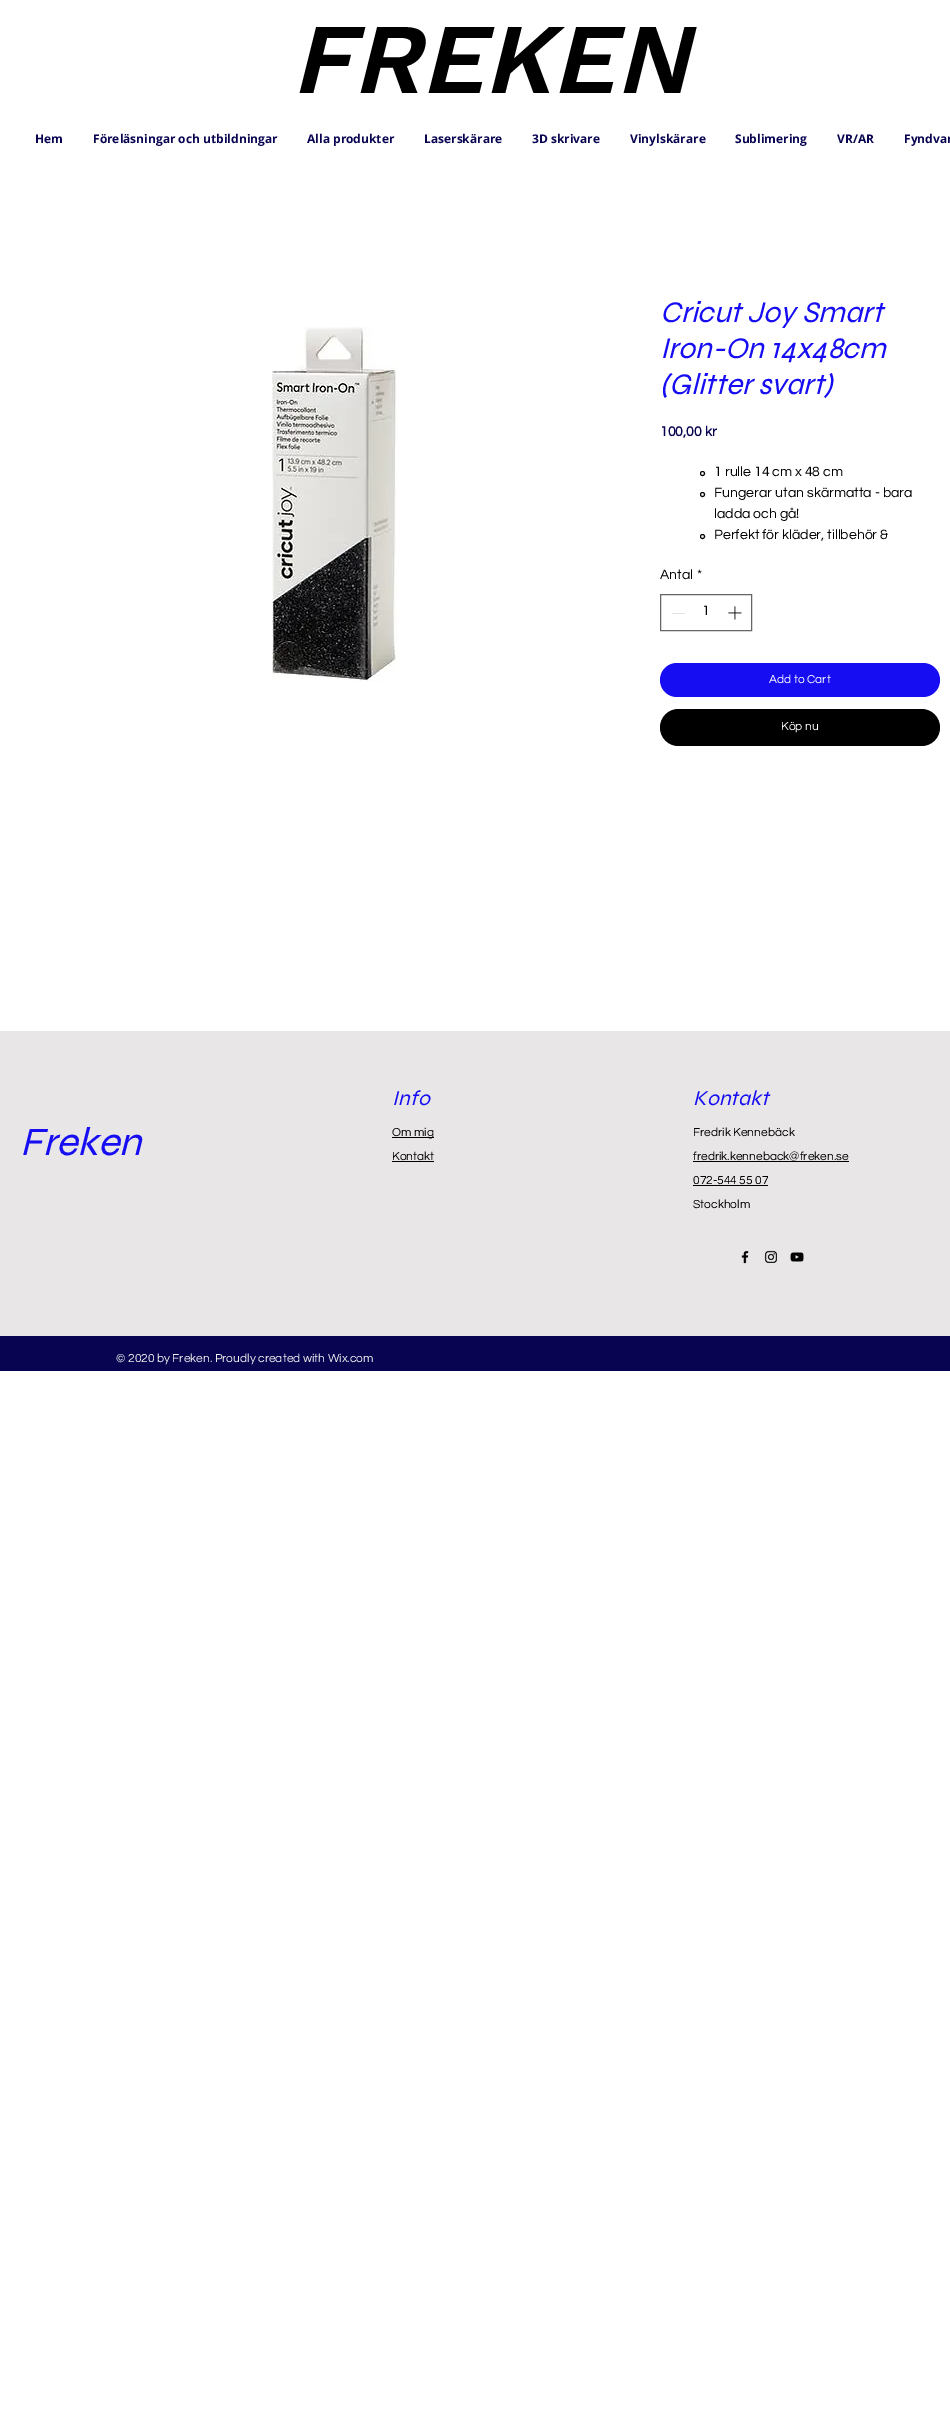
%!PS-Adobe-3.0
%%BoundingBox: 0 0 950 2424
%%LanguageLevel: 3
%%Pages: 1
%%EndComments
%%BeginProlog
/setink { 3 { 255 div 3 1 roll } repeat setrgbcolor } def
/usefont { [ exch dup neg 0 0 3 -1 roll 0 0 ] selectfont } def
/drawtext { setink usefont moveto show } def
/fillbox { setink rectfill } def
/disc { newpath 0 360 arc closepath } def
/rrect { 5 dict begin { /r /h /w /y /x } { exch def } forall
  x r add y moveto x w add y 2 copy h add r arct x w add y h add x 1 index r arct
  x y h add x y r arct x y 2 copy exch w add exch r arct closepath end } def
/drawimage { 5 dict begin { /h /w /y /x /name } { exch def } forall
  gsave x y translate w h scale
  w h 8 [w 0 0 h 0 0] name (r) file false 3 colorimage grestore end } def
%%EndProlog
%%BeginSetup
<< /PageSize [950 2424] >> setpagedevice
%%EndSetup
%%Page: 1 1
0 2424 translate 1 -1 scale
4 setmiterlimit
0 0 950 2424 255 255 255 fillbox
(FREKEN) 291 93 /WorkSans-SemiBoldItalic 100 0 0 0 drawtext
(Hem) 35 143 /OpenSans-Bold 12 8 4 81 drawtext
(Föreläsningar och utbildningar) 93 143 /OpenSans-Bold 12 8 4 81 drawtext
(Alla produkter) 307 143 /OpenSans-Bold 12 8 4 81 drawtext
(Laserskärare) 424 143 /OpenSans-Bold 12 8 4 81 drawtext
(3D skrivare) 532 143 /OpenSans-Bold 12 8 4 81 drawtext
(Vinylskärare) 630 143 /OpenSans-Bold 12 8 4 81 drawtext
(Sublimering) 735 143 /OpenSans-Bold 12 8 4 81 drawtext
(VR/AR) 837 143 /OpenSans-Bold 12 8 4 81 drawtext
(Fyndvar) 904 143 /OpenSans-Bold 12 8 4 81 drawtext
(assets/img1.rgb) 272 327 126 355 drawimage
(Cricut Joy Smart) 660 322 /Syne-Italic 30 23 13 242 drawtext
(Iron-On 14x48cm) 660 358 /Syne-Italic 30 23 13 242 drawtext
(\(Glitter svart\)) 660 394 /Syne-Italic 30 23 13 242 drawtext
(100,00 kr) 660 436 /Questrial-Bold 14 8 4 81 drawtext
0 0 0 setink
702.5 473.5 2 disc stroke
(1 rulle 14 cm x 48 cm) 714 476 /Questrial-Regular 14 0 0 0 drawtext
702.5 494.5 2 disc stroke
(Fungerar utan skärmatta - bara) 714 497 /Questrial-Regular 14 0 0 0 drawtext
(ladda och gå!) 714 518 /Questrial-Regular 14 0 0 0 drawtext
702.5 536.5 2 disc stroke
(Perfekt för kläder, tillbehör &) 714 539 /Questrial-Regular 14 0 0 0 drawtext
(Antal) 660 579 /Questrial-Regular 14 0 0 0 drawtext
(*) 697 579 /Questrial-Regular 14 0 0 0 drawtext
102 102 102 setink
660.5 594.5 91 36 rectstroke
672 613 13 1 227 227 227 fillbox
(1) 702 615 /Questrial-Regular 14 0 0 0 drawtext
(assets/img2.rgb) 728 606 14 14 drawimage
23 13 242 setink
660 663 280 34 17 rrect fill
(Add to Cart) 769 683 /Questrial-Regular 12 255 255 255 drawtext
0 0 0 setink
660 709 280 37 18.5 rrect fill
(Köp nu) 781 730 /Questrial-Regular 12 255 255 255 drawtext
0 1031 950 305 232 230 230 fillbox
(Freken) 20 1155 /Syne-Italic 40 23 13 242 drawtext
/Syne-Italic 21 usefont
392 1105 moveto 0.25 0 (Info) ashow
392 1137 42 1 0 0 0 fillbox
(Om mig) 392 1136 /Questrial-Regular 12 0 0 0 drawtext
(Kontakt) 392 1160 /Questrial-Regular 12 0 0 0 drawtext
392 1161 42 1 0 0 0 fillbox
/Syne-Italic 21 usefont
23 13 242 setink
693 1105 moveto 0.25 0 (Kontakt) ashow
(Fredrik Kennebäck) 693 1136 /Questrial-Regular 12 0 0 0 drawtext
(fredrik.kenneback@freken.se) 693 1160 /Questrial-Regular 12 0 0 0 drawtext
693 1161 156 1 0 0 0 fillbox
(072-544 55 07) 693 1184 /Questrial-Regular 12 0 0 0 drawtext
693 1185 75 1 0 0 0 fillbox
(Stockholm) 693 1208 /Questrial-Regular 12 0 0 0 drawtext
(assets/img3.rgb) 741 1250 8 14 drawimage
(assets/img4.rgb) 764 1250 13 13 drawimage
(assets/img5.rgb) 790 1252 14 10 drawimage
0 1336 950 35 8 4 81 fillbox
(© 2020 by Freken. Proudly created with Wix.com) 116 1362 /Questrial-Regular 12 240 240 240 drawtext
showpage
%%EOF
